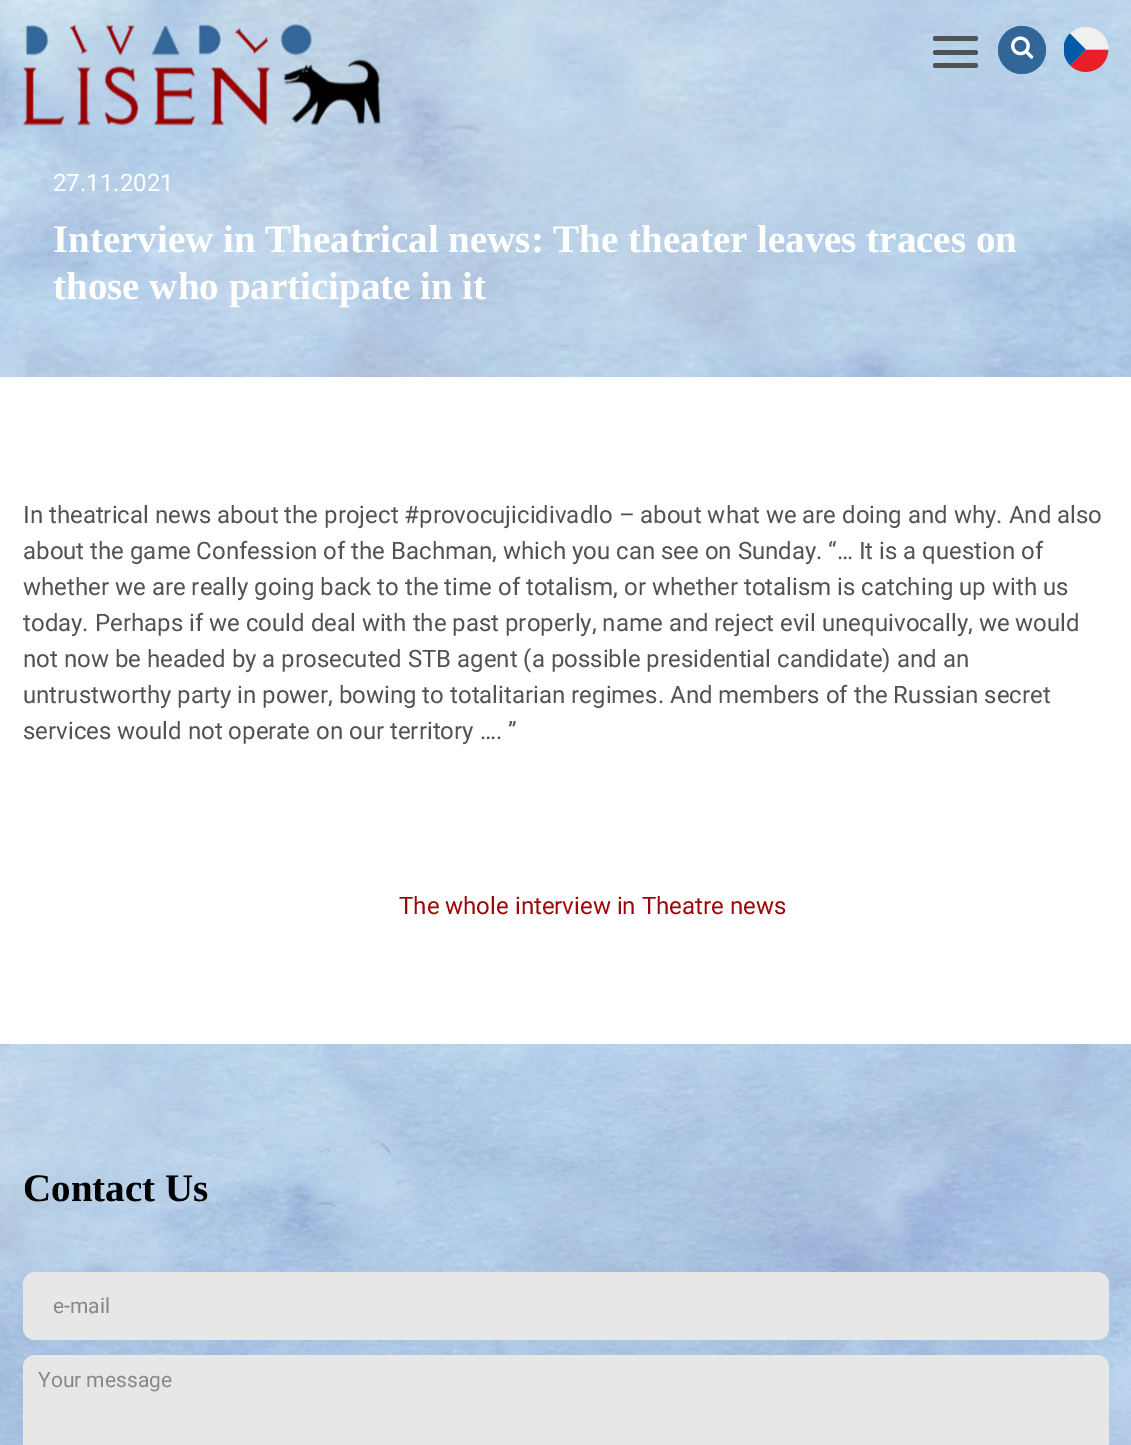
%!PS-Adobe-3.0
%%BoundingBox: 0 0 1131 1445
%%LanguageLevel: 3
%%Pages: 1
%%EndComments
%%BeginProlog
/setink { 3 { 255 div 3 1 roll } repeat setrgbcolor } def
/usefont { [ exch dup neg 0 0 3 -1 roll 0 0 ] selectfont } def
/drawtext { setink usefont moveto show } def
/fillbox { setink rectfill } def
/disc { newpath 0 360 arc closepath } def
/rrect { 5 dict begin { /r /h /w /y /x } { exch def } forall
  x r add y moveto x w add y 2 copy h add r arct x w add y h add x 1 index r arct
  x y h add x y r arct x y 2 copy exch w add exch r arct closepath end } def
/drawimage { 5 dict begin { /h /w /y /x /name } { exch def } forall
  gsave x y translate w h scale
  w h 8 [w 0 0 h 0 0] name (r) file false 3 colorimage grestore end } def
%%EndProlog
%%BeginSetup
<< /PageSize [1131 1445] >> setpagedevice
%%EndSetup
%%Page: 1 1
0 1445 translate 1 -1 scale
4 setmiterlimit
0 0 1131 1445 255 255 255 fillbox
(assets/img4.rgb) 0 0 1131 377 drawimage
(assets/img1.rgb) 23 24 358 102 drawimage
81 82 83 setink
933 36 45 5 2.5 rrect fill
933 50 45 5 2.5 rrect fill
933 63 45 5 2.5 rrect fill
50 102 152 setink
1022 50 24 disc fill
(assets/img2.rgb) 1011 36 23 23 drawimage
(assets/img3.rgb) 1064 27 45 45 drawimage
(27.11.2021) 53 191 /Roboto-Regular 24 255 255 255 drawtext
(Interview in Theatrical news: The theater leaves traces on) 53 252 /LiberationSerif-Bold 39 255 255 255 drawtext
(those who participate in it) 53 299 /LiberationSerif-Bold 39 255 255 255 drawtext
(In theatrical news about the project #provocujicidivadlo – about what we are doing and why. And also) 23 523 /Roboto-Regular 24 81 82 83 drawtext
(about the game Confession of the Bachman, which you can see on Sunday. “… It is a question of) 23 559 /Roboto-Regular 24 81 82 83 drawtext
(whether we are really going back to the time of totalism, or whether totalism is catching up with us) 23 595 /Roboto-Regular 24 81 82 83 drawtext
(today. Perhaps if we could deal with the past properly, name and reject evil unequivocally, we would) 23 631 /Roboto-Regular 24 81 82 83 drawtext
(not now be headed by a prosecuted STB agent \(a possible presidential candidate\) and an) 23 667 /Roboto-Regular 24 81 82 83 drawtext
(untrustworthy party in power, bowing to totalitarian regimes. And members of the Russian secret) 23 703 /Roboto-Regular 24 81 82 83 drawtext
(services would not operate on our territory …. ”) 23 739 /Roboto-Regular 24 81 82 83 drawtext
(The whole interview in Theatre news) 399 914 /Roboto-Regular 24 157 7 8 drawtext
(assets/img5.rgb) 0 1044 1131 401 drawimage
(Contact Us) 23 1201 /LiberationSerif-Bold 39 0 0 0 drawtext
231 231 231 setink
23 1272 1086 68 12 rrect fill
(e-mail) 53 1313 /Roboto-Regular 21 136 136 136 drawtext
231 231 231 setink
23 1355 1086 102 12 rrect fill
(Your message) 38 1387 /Roboto-Regular 21 136 136 136 drawtext
showpage
%%EOF
